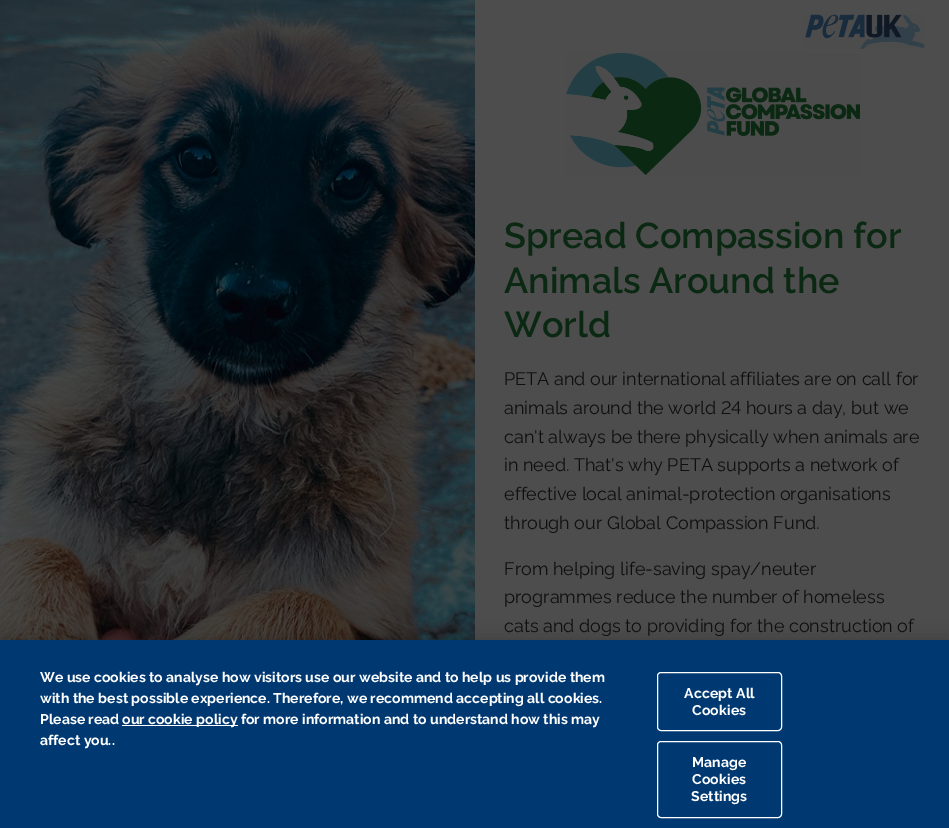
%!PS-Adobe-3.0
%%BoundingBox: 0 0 949 828
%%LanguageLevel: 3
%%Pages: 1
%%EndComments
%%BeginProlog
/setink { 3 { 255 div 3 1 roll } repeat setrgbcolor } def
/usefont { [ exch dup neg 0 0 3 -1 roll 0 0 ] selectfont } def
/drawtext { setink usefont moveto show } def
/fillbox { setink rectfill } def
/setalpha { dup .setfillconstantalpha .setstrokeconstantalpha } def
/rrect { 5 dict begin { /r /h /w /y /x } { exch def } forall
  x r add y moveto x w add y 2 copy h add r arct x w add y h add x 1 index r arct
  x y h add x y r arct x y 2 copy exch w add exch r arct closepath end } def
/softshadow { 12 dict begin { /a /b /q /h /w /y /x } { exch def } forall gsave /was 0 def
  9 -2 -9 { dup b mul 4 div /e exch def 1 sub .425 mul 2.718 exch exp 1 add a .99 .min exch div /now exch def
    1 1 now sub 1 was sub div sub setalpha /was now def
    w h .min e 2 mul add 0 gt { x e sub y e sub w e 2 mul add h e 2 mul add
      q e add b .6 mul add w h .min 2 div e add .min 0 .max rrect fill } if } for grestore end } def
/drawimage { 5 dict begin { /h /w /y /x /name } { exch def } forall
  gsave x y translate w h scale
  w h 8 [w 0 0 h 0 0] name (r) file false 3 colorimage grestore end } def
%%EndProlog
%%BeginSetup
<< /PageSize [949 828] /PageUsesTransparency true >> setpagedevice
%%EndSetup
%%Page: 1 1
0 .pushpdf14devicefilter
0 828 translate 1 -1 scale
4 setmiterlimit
0 0 949 828 77 77 77 fillbox
(assets/img1.rgb) 0 0 475 640 drawimage
(assets/img2.rgb) 805 14 120 35 drawimage
(assets/img3.rgb) 566 53 294 122 drawimage
(Spread Compassion for) 504 248 /Raleway-Thin 35.9 11 40 19 drawtext
(Animals Around the) 504 293 /Raleway-Thin 35.9 11 40 19 drawtext
(World) 504 337 /Raleway-Thin 35.9 11 40 19 drawtext
(PETA and our international affiliates are on call for) 504 385 /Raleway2-Thin 18 15 15 15 drawtext
(animals around the world 24 hours a day, but we) 504 414 /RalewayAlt-Thin 18 15 15 15 drawtext
(can't always be there physically when animals are) 504 443 /Raleway2-Thin 18 15 15 15 drawtext
(in need. That's why PETA supports a network of) 504 471 /Raleway2-Thin 18 15 15 15 drawtext
(effective local animal-protection organisations) 504 500 /Raleway2-Thin 18 15 15 15 drawtext
(through our Global Compassion Fund.) 504 529 /Raleway2-Thin 18 15 15 15 drawtext
(From helping life-saving spay/neuter) 504 575 /Raleway2-Thin 18 15 15 15 drawtext
(programmes reduce the number of homeless) 504 603 /Raleway2-Thin 18 15 15 15 drawtext
(cats and dogs to providing for the construction of) 504 632 /Raleway2-Thin 18 15 15 15 drawtext
0 0 0 setink
0 640 949 188 0 9 0.2 softshadow
0 640 949 188 0 56 114 fillbox
(We use cookies to analyse how visitors use our website and to help us provide them) 40 682 /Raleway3-Thin 14.05 255 255 255 drawtext
(with the best possible experience. Therefore, we recommend accepting all cookies.) 40 703 /Raleway3-Thin 14.05 255 255 255 drawtext
(Please read) 40 724 /Raleway3-Thin 14.05 255 255 255 drawtext
122 725 116 1 255 255 255 fillbox
(our cookie policy for more information and to understand how this may) 122 724 /Raleway3-Thin 14.05 255 255 255 drawtext
(affect you..) 40 745 /Raleway3-Thin 14.05 255 255 255 drawtext
657.5 672.5 124 58 3.5 rrect stroke
684 698 moveto 0.1 0 (Accept All) ashow
692 715 moveto 0.1 0 (Cookies) ashow
657.5 741.5 124 76 3.5 rrect stroke
692 767 moveto 0.1 0 (Manage) ashow
692 784 moveto 0.1 0 (Cookies) ashow
691 801 moveto 0.1 0 (Settings) ashow
.poppdf14devicefilter showpage
%%EOF
